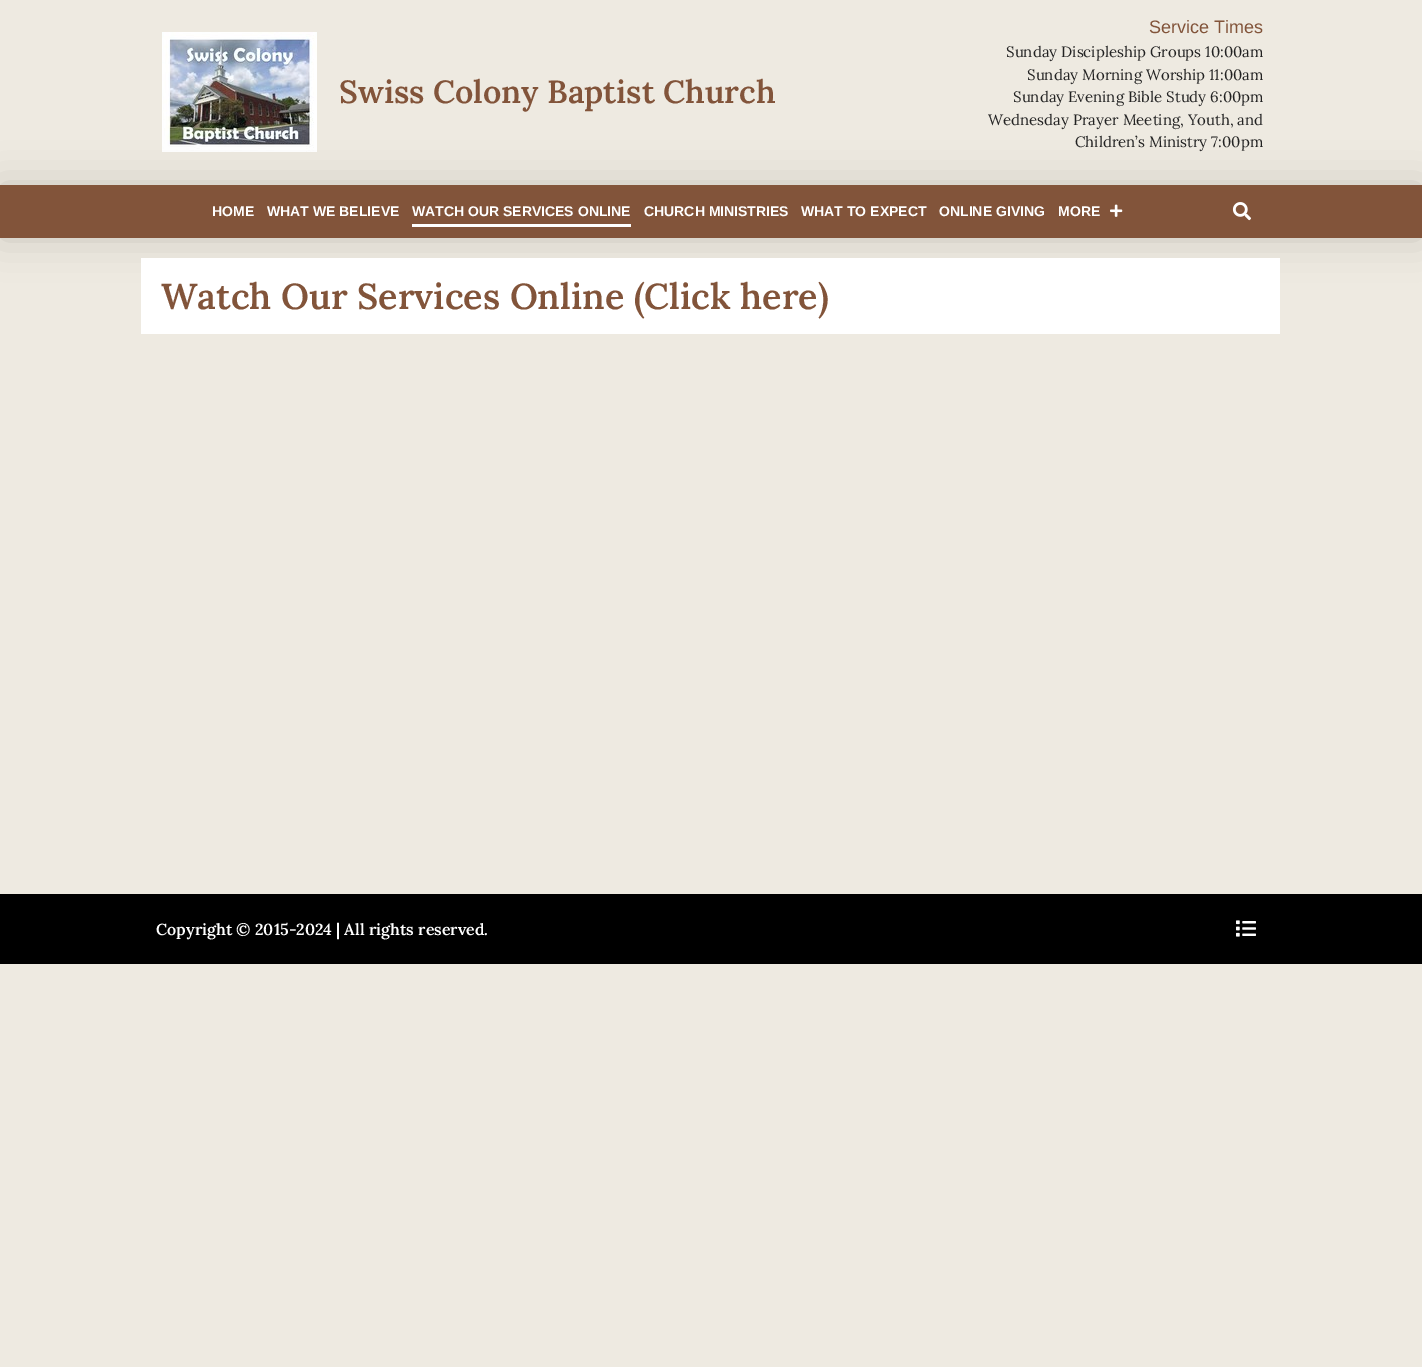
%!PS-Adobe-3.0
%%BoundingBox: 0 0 1422 1367
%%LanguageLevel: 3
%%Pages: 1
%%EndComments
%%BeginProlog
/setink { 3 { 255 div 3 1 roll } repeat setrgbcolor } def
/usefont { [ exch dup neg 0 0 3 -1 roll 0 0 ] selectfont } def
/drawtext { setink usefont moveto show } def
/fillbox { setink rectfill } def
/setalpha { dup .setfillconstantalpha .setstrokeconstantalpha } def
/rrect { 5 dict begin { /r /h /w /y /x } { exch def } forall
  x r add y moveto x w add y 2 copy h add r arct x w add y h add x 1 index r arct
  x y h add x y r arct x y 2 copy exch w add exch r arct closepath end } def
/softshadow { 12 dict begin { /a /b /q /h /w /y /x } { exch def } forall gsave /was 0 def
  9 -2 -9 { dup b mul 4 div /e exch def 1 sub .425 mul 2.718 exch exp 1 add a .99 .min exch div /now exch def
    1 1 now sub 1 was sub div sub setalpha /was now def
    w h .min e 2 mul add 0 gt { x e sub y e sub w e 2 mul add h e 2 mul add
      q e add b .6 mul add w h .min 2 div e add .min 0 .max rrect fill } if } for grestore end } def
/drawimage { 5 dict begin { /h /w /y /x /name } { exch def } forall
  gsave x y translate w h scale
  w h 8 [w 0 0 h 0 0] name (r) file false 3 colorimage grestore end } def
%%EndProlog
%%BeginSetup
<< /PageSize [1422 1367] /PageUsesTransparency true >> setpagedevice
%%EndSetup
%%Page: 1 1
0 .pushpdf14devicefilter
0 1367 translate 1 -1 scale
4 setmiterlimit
0 0 1422 1367 238 234 225 fillbox
(assets/img1.rgb) 162 32 155 120 drawimage
(Swiss Colony Baptist Church) 339 103 /Lora-SemiBold 32 130 84 58 drawtext
(Service Times) 1149 33 /LiberationSans-Regular 18 130 84 58 drawtext
(Sunday Discipleship Groups 10:00am) 1006 57 /Lora-Regular 15 34 34 34 drawtext
(Sunday Morning Worship 11:00am) 1027 80 /Lora-Regular 15 34 34 34 drawtext
(Sunday Evening Bible Study 6:00pm) 1013 102 /Lora-Regular 15 34 34 34 drawtext
(Wednesday Prayer Meeting, Youth, and) 988 125 /Lora-Regular 15 34 34 34 drawtext
(Children’s Ministry 7:00pm) 1075 147 /Lora-Regular 15 34 34 34 drawtext
0 0 0 setink
0 185 1422 53 0 20 0.16 softshadow
0 185 1422 53 130 84 58 fillbox
(HOME) 212 216 /LiberationSans-Bold 14 255 255 255 drawtext
(WHAT WE BELIEVE) 267 216 /LiberationSans-Bold 14 255 255 255 drawtext
(WATCH OUR SERVICES ONLINE) 412 216 /LiberationSans-Bold 14 255 255 255 drawtext
412 224 219 3 255 255 255 fillbox
(CHURCH MINISTRIES) 644 216 /LiberationSans-Bold 14 255 255 255 drawtext
(WHAT TO EXPECT) 801 216 /LiberationSans-Bold 14 255 255 255 drawtext
(ONLINE GIVING) 939 216 /LiberationSans-Bold 14 255 255 255 drawtext
(MORE) 1058 216 /LiberationSans-Bold 14 255 255 255 drawtext
(assets/img2.rgb) 1110 204 13 13 drawimage
(assets/img3.rgb) 1232 202 19 19 drawimage
141 258 1139 76 255 255 255 fillbox
(Watch Our Services Online \(Click here\)) 161 309 /Lora-SemiBold 36 130 84 58 drawtext
0 894 1422 70 0 0 0 fillbox
(Copyright © 2015-2024 | All rights reserved.) 156 935 /Lora-SemiBold 16 255 255 255 drawtext
(assets/img4.rgb) 1236 920 20 17 drawimage
.poppdf14devicefilter showpage
%%EOF
